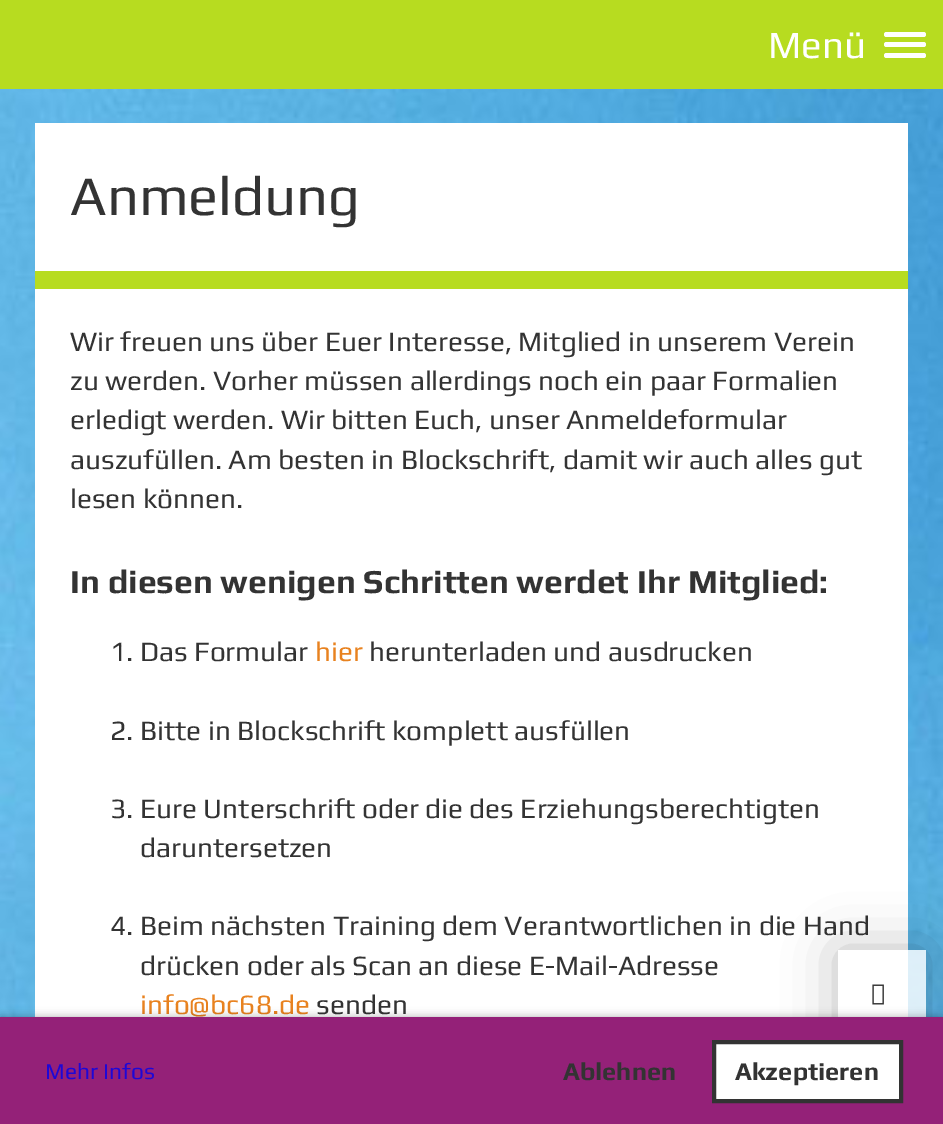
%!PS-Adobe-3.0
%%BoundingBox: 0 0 943 1124
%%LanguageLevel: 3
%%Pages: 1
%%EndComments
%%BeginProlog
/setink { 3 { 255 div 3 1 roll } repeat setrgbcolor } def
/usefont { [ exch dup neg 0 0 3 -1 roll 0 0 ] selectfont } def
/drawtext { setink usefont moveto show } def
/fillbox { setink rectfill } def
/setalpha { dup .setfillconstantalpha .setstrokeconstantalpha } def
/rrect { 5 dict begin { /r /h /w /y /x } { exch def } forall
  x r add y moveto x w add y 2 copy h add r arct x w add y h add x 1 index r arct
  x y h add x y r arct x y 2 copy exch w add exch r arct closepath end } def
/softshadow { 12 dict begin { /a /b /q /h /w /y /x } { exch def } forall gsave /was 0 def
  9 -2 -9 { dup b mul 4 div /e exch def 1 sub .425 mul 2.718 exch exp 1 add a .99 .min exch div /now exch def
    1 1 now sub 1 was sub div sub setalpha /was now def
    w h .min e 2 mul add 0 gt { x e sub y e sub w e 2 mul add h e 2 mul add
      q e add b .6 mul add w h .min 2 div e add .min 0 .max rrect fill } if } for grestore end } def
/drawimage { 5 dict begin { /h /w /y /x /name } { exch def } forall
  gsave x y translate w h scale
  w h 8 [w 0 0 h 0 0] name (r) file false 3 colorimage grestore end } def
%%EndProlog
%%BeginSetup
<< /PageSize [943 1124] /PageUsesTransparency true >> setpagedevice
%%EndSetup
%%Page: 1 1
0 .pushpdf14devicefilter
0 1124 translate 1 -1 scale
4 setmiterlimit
0 0 943 1124 255 255 255 fillbox
0 0 943 89 183 220 32 fillbox
(Menü) 768 58 /Play-Regular 38.5 255 255 255 drawtext
884 32 42 5 2.5 rrect fill
884 42 42 5 2.5 rrect fill
884 53 42 5 2.5 rrect fill
(assets/img1.rgb) 0 89 943 928 drawimage
35 123 873 148 255 255 255 fillbox
(Anmeldung) 70 215 /Play-Regular 56 51 51 51 drawtext
35 271 873 18 183 220 32 fillbox
35 289 873 728 255 255 255 fillbox
(Wir freuen uns über Euer Interesse, Mitglied in unserem Verein) 70 351 /Play-Regular 28 51 51 51 drawtext
(zu werden. Vorher müssen allerdings noch ein paar Formalien) 70 390 /Play-Regular 28 51 51 51 drawtext
(erledigt werden. Wir bitten Euch, unser Anmeldeformular) 70 429 /Play-Regular 28 51 51 51 drawtext
(auszufüllen. Am besten in Blockschrift, damit wir auch alles gut) 70 469 /Play-Regular 28 51 51 51 drawtext
(lesen können.) 70 508 /Play-Regular 28 51 51 51 drawtext
(In diesen wenigen Schritten werdet Ihr Mitglied:) 70 593 /Play-Bold 33.6 51 51 51 drawtext
(1. Das Formular) 110 661 /Play-Regular 28 51 51 51 drawtext
(hier) 315 661 /Play-Regular 28 232 130 31 drawtext
(herunterladen und ausdrucken) 369 661 /Play-Regular 28 51 51 51 drawtext
(2. Bitte in Blockschrift komplett ausfüllen) 110 740 /Play-Regular 28 51 51 51 drawtext
(3. Eure Unterschrift oder die des Erziehungsberechtigten) 110 818 /Play-Regular 28 51 51 51 drawtext
(daruntersetzen) 140 857 /Play-Regular 28 51 51 51 drawtext
(4. Beim nächsten Training dem Verantwortlichen in die Hand) 110 935 /Play-Regular 28 51 51 51 drawtext
(drücken oder als Scan an diese E-Mail-Adresse) 140 975 /Play-Regular 28 51 51 51 drawtext
(info@bc68.de) 140 1014 /Play-Regular 28 232 130 31 drawtext
(senden) 316 1014 /Play-Regular 28 51 51 51 drawtext
gsave
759 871 moveto 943 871 lineto 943 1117 lineto 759 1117 lineto closepath 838 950 moveto 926 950 lineto 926 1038 lineto 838 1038 lineto closepath eoclip newpath
0 0 0 setink
838 950 88 88 0 26 0.25 softshadow
grestore
0.8 setalpha
838 950 88 67 255 255 255 fillbox
1 setalpha
(assets/img2.rgb) 872 984 12 21 drawimage
0 0 0 setink
0 1017 943 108 0 4.5 0.3 softshadow
0 1017 943 107 148 33 120 fillbox
(Mehr Infos) 45 1079 /Play-Regular 22.75 30 7 214 drawtext
(Ablehnen) 563 1080 /Play-Bold 25.25 51 51 51 drawtext
255 255 255 setink
714 1042 moveto 901 1042 lineto 901 1101 lineto 714 1101 lineto closepath gsave fill grestore
51 51 51 setink
4 setlinewidth
stroke
(Akzeptieren) 735 1080 /Play-Bold 25.25 51 51 51 drawtext
.poppdf14devicefilter showpage
%%EOF
